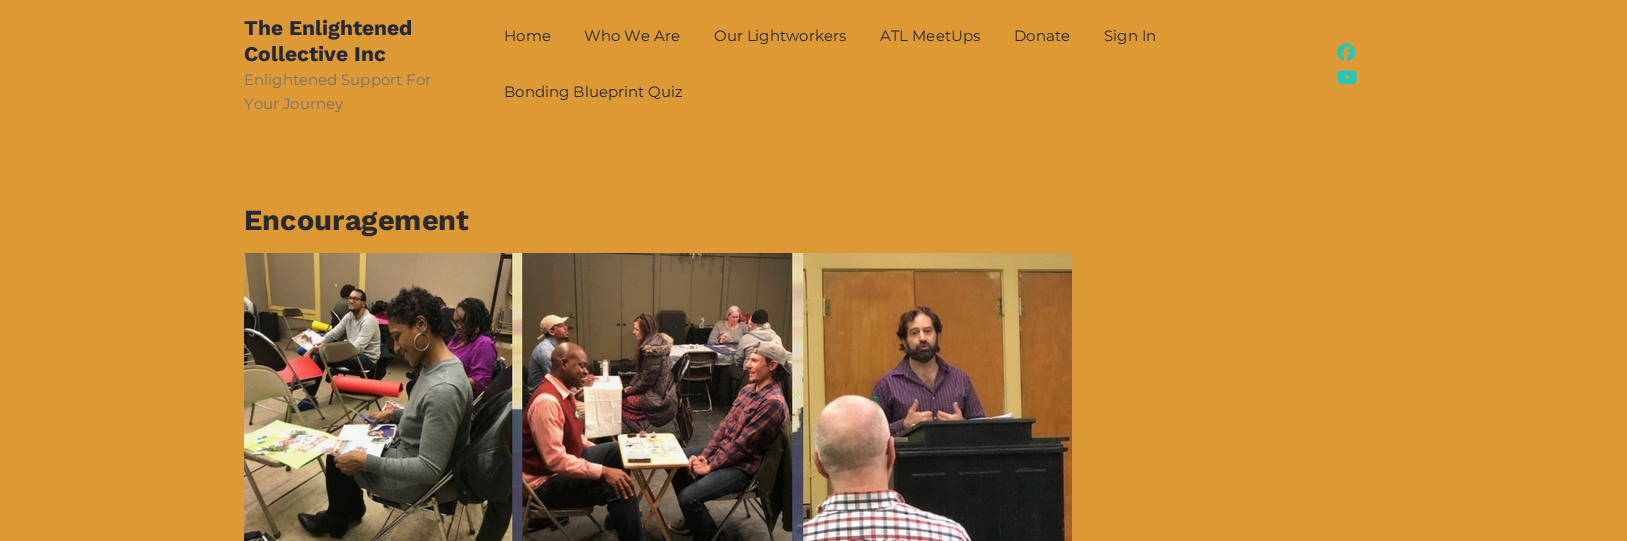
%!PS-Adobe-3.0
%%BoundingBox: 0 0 1627 541
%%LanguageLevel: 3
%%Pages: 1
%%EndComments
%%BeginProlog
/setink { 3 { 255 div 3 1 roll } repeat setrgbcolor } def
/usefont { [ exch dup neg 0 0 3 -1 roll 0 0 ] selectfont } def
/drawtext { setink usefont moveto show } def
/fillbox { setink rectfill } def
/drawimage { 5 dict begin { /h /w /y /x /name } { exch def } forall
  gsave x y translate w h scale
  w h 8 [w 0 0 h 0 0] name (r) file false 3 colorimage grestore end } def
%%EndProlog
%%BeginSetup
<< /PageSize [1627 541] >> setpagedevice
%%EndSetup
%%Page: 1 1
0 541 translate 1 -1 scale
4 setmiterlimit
0 0 1627 541 221 153 51 fillbox
(The Enlightened) 244 35 /WorkSans-Bold 21 35 40 55 drawtext
(Collective Inc) 244 61 /WorkSans-Bold 21 35 40 55 drawtext
(Enlightened Support For) 244 85 /Montserrat-Thin 15 116 116 116 drawtext
(Your Journey) 244 109 /Montserrat-Thin 15 116 116 116 drawtext
(Home) 504 41 /Montserrat-Thin 15 35 40 55 drawtext
(Who We Are) 584 41 /Montserrat-Thin 15 35 40 55 drawtext
(Our Lightworkers) 714 41 /Montserrat-Thin 15 35 40 55 drawtext
(ATL MeetUps) 880 41 /Montserrat-Thin 15 35 40 55 drawtext
(Donate) 1014 41 /Montserrat-Thin 15 35 40 55 drawtext
(Sign In) 1104 41 /Montserrat-Thin 15 35 40 55 drawtext
(Bonding Blueprint Quiz) 504 97 /Montserrat-Thin 15 35 40 55 drawtext
(assets/img1.rgb) 1337 43 18 19 drawimage
(assets/img2.rgb) 1337 70 20 14 drawimage
(Encouragement) 244 230 /WorkSans-Bold 29 42 42 42 drawtext
(assets/img3.rgb) 244 253 828 288 drawimage
showpage
%%EOF
